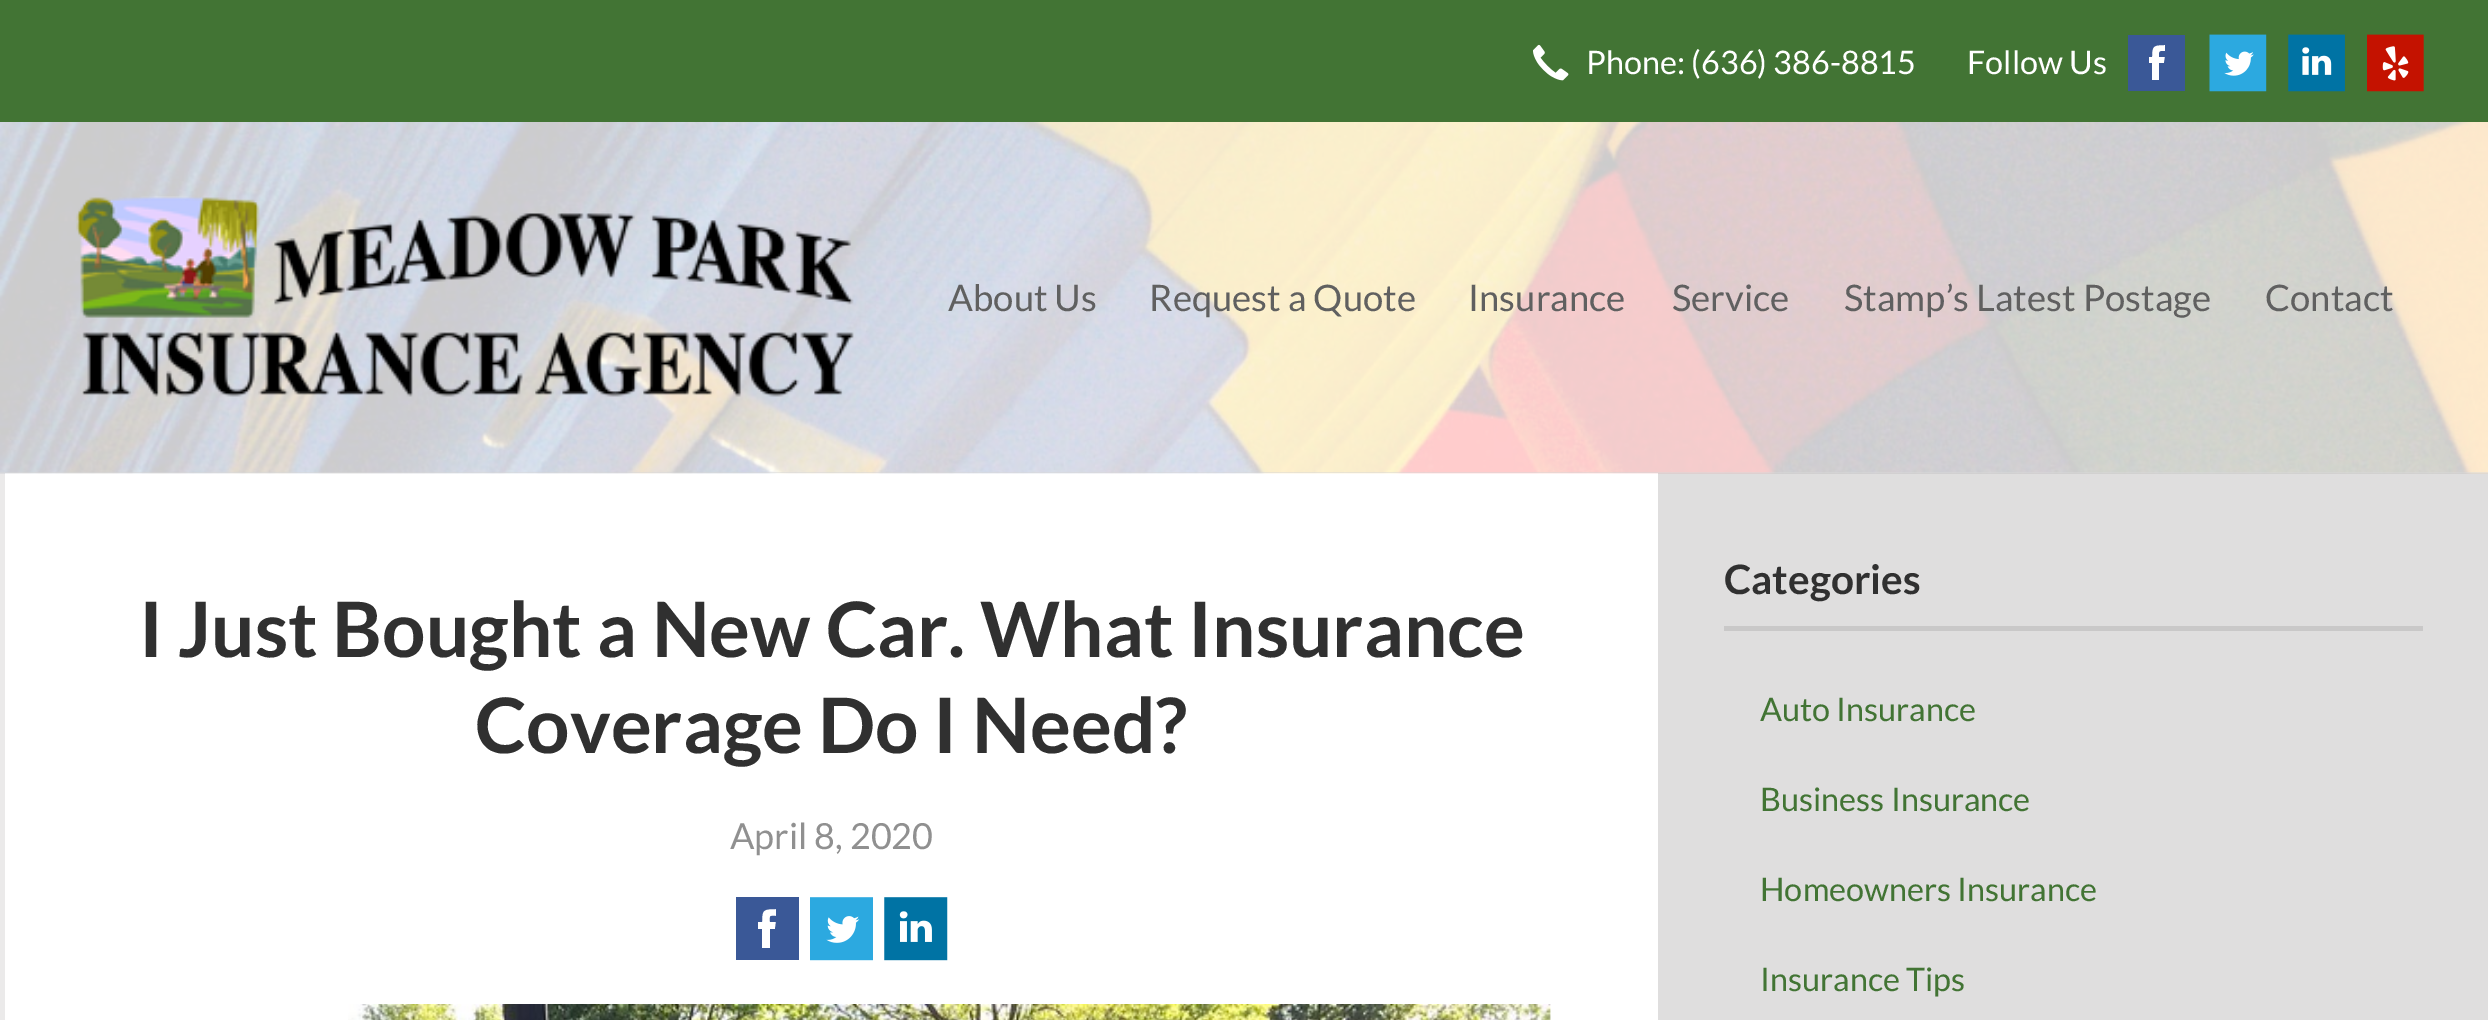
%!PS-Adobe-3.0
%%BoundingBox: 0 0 2488 1020
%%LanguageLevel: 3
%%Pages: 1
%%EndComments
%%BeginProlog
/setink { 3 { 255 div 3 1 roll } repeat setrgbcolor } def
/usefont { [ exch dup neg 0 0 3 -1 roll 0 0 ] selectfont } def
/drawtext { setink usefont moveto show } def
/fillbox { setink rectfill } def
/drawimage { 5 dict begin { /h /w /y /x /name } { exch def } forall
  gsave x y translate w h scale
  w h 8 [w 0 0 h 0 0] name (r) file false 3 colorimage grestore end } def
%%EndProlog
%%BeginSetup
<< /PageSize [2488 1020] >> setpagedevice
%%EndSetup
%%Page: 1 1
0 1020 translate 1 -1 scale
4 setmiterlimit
0 0 2488 1020 66 116 52 fillbox
(assets/img1.rgb) 1533 44 36 37 drawimage
(Phone: \(636\) 386-8815) 1586 74 /Lato-Regular 32.4 255 255 255 drawtext
(Follow Us) 1967 74 /Lato-Regular 32.4 255 255 255 drawtext
2149 45 16 35 255 255 255 fillbox
58 88 151 setink
2128 91 moveto 2185 91 lineto 2185 35 lineto 2128 35 lineto closepath 2149 57 moveto 2152 57 lineto 2152 46 2153 45 2165 45 curveto 2165 51 lineto 2159 51 2159 51 2159 57 curveto 2165 57 lineto 2164 63 lineto 2159 63 lineto 2159 80 lineto 2152 80 lineto 2152 63 lineto 2149 63 lineto closepath fill
2224 51 30 25 255 255 255 fillbox
(assets/img2.rgb) 2209 34 58 58 drawimage
2302 47 30 28 255 255 255 fillbox
(assets/img3.rgb) 2288 34 57 58 drawimage
2382 46 27 35 255 255 255 fillbox
(assets/img4.rgb) 2367 34 57 58 drawimage
0 472 2488 1 217 217 217 fillbox
5 473 1653 547 255 255 255 fillbox
0 473 5 547 235 234 234 fillbox
1658 473 830 547 223 222 222 fillbox
(assets/img5.rgb) 0 122 2488 352 drawimage
(assets/img6.rgb) 76 196 778 201 drawimage
(About Us) 948 311 /Lato-Regular 36.5 96 96 96 drawtext
(Request a Quote) 1149 311 /Lato-Regular 36.5 96 96 96 drawtext
(Insurance) 1468 311 /Lato-Regular 36.5 96 96 96 drawtext
(Service) 1672 311 /Lato-Regular 36.5 96 96 96 drawtext
(Stamp’s Latest Postage) 1844 311 /Lato-Regular 36.5 96 96 96 drawtext
(Contact) 2265 311 /Lato-Regular 36.5 96 96 96 drawtext
(I Just Bought a New Car. What Insurance) 139 657 /Lato-Bold 76.5 48 48 48 drawtext
(Coverage Do I Need?) 475 753 /Lato-Bold 76.5 48 48 48 drawtext
(April 8, 2020) 730 849 /Lato-Regular 36 144 144 144 drawtext
58 88 151 setink
736 960 moveto 799 960 lineto 799 897 lineto 736 897 lineto closepath 758 922 moveto 762 922 lineto 762 910 763 909 776 909 curveto 776 916 lineto 769 916 770 915 770 922 curveto 776 922 lineto 775 929 lineto 770 929 lineto 770 948 lineto 762 948 lineto 762 929 lineto 758 929 lineto closepath fill
(assets/img7.rgb) 810 897 63 64 drawimage
(assets/img8.rgb) 884 897 64 64 drawimage
(assets/img9.rgb) 348 1004 1203 16 drawimage
1724 626 699 5 201 200 200 fillbox
(Categories) 1724 594 /Lato-Bold 40.5 48 48 48 drawtext
(Auto Insurance) 1760 721 /Lato-Regular 32.4 66 116 52 drawtext
(Business Insurance) 1760 811 /Lato-Regular 32.4 66 116 52 drawtext
(Homeowners Insurance) 1760 901 /Lato-Regular 32.4 66 116 52 drawtext
(Insurance Tips) 1760 991 /Lato-Regular 32.4 66 116 52 drawtext
showpage
%%EOF
